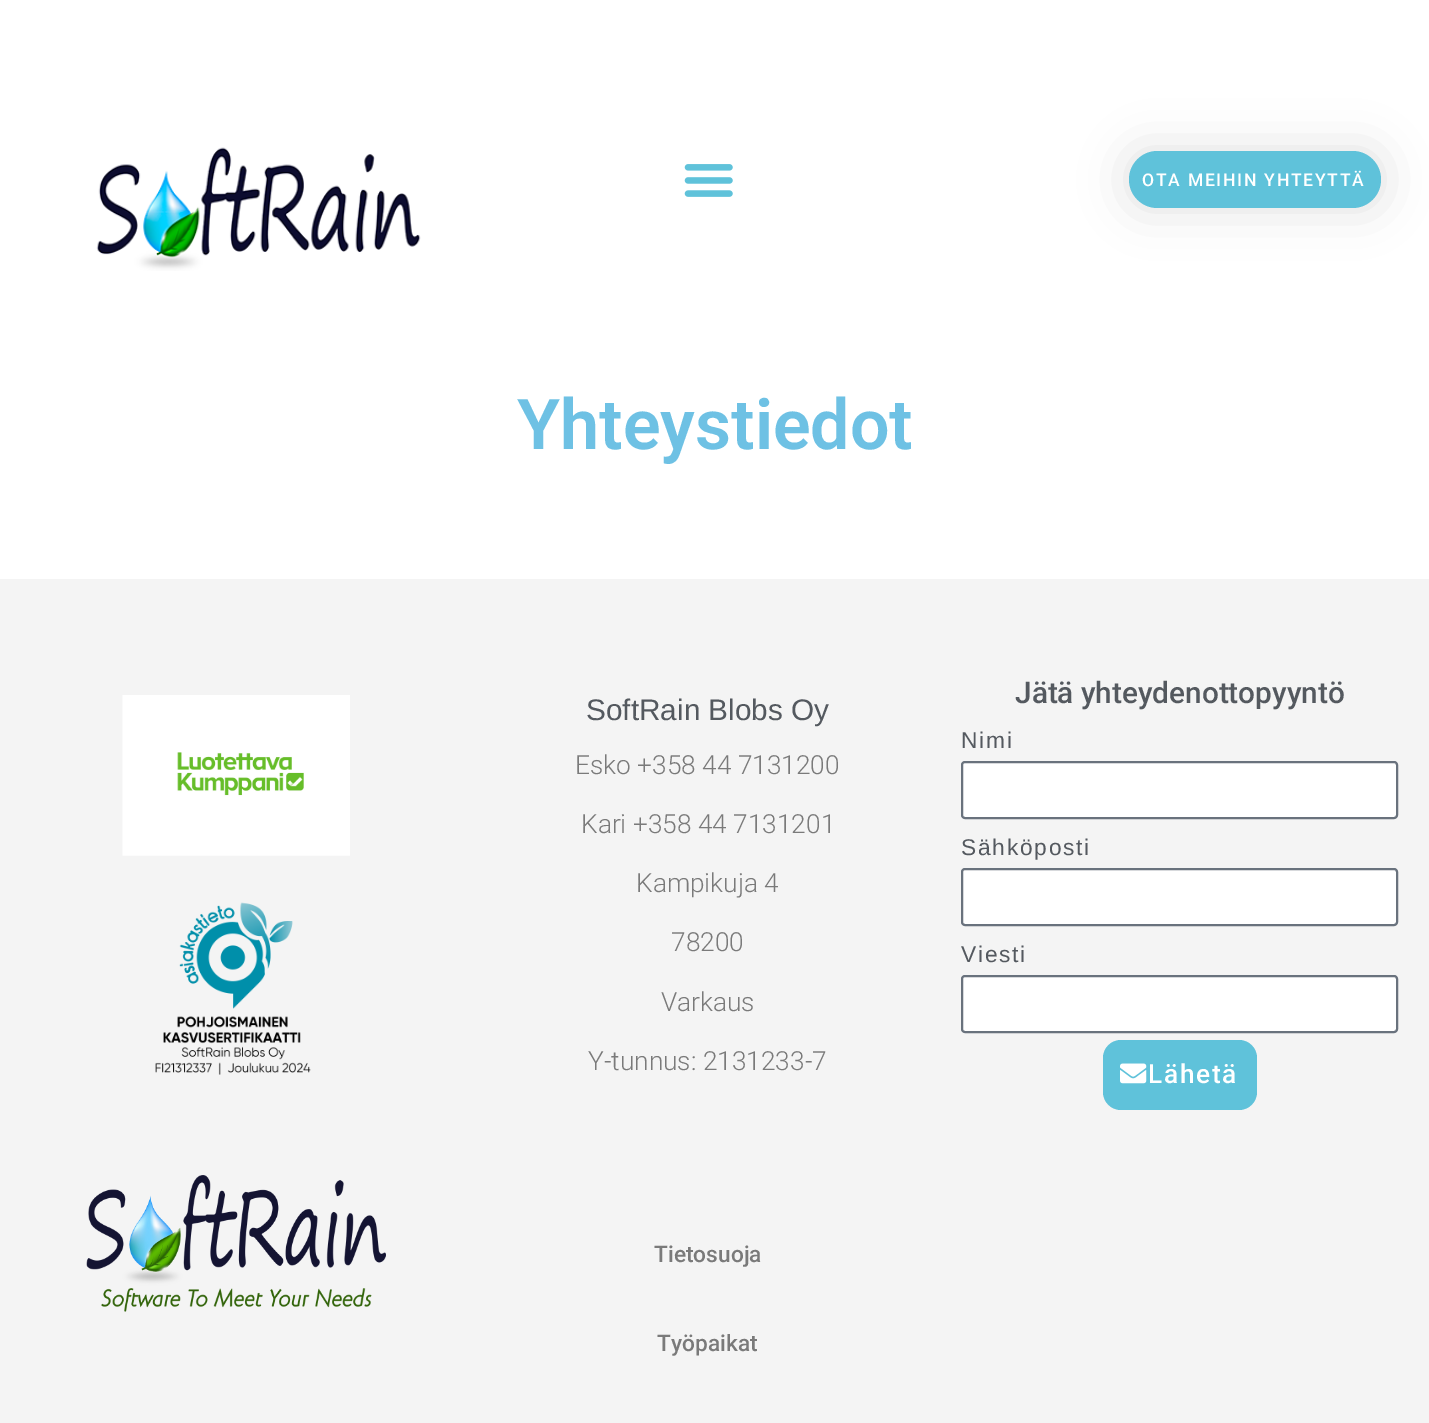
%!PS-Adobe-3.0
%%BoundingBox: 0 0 1429 1423
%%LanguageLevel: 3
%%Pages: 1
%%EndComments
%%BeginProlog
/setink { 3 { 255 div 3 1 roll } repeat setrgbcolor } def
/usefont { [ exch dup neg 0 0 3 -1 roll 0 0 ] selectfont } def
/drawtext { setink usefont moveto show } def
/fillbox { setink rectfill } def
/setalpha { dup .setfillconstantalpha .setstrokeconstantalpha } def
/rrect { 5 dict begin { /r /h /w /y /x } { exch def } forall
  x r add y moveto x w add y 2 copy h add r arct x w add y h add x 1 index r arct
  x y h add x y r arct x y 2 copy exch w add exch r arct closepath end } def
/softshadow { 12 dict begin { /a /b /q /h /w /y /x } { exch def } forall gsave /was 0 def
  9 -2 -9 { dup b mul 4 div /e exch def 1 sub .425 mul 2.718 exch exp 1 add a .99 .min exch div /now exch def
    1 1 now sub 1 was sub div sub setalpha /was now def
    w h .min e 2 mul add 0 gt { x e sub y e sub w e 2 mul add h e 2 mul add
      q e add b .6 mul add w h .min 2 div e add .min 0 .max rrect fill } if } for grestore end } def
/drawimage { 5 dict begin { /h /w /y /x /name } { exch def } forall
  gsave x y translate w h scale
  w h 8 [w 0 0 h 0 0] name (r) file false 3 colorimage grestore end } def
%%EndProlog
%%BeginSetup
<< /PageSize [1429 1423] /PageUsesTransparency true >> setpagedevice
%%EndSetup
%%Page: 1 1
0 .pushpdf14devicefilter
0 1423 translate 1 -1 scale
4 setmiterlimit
0 0 1429 1423 255 255 255 fillbox
(assets/img1.rgb) 96 147 325 124 drawimage
(assets/img2.rgb) 684 164 49 33 drawimage
0 0 0 setink
1129 151 252 57 28.5 23.5 0.12 softshadow
95 194 218 setink
1129 151 252 57 28.5 rrect fill
/Roboto-Medium 17.5 usefont
255 255 255 setink
1142 186 moveto 1.75 0 (OTA MEIHIN YHTEYTTÄ) ashow
(Yhteystiedot) 517 449 /Roboto-SemiBold 70 110 193 228 drawtext
0 579 1429 844 244 244 244 fillbox
(assets/img3.rgb) 122 695 228 161 drawimage
(assets/img4.rgb) 155 902 156 173 drawimage
(assets/img5.rgb) 86 1175 300 137 drawimage
(SoftRain Blobs Oy) 586 720 /LiberationSans-Regular 29.75 84 89 95 drawtext
(Esko +358 44 7131200) 575 774 /Roboto-Light 26.25 122 122 122 drawtext
(Kari +358 44 7131201) 581 833 /Roboto-Light 26.25 122 122 122 drawtext
(Kampikuja 4) 636 892 /Roboto-Light 26.25 122 122 122 drawtext
(78200) 671 951 /Roboto-Light 26.25 122 122 122 drawtext
(Varkaus) 661 1011 /Roboto-Light 26.25 122 122 122 drawtext
(Y-tunnus: 2131233-7) 588 1070 /Roboto-Light 26.25 122 122 122 drawtext
(Tietosuoja) 654 1262 /Roboto-Medium 22.75 122 122 122 drawtext
(Työpaikat) 657 1351 /Roboto-Medium 22.75 122 122 122 drawtext
(Jätä yhteydenottopyyntö) 1015 703 /Roboto-Medium 29.75 84 89 95 drawtext
/LiberationSans-Regular 22.75 usefont
961 748 moveto 1.75 0 (Nimi) ashow
255 255 255 setink
962 762 435 56 3 rrect gsave fill grestore
105 114 125 setink
2 setlinewidth
stroke
84 89 95 setink
961 855 moveto 1.75 0 (Sähköposti) ashow
255 255 255 setink
962 869 435 56 3 rrect gsave fill grestore
105 114 125 setink
stroke
84 89 95 setink
961 962 moveto 1.75 0 (Viesti) ashow
255 255 255 setink
962 976 435 56 3 rrect gsave fill grestore
105 114 125 setink
stroke
95 194 218 setink
1103 1040 154 70 18 rrect fill
(assets/img6.rgb) 1120 1063 27 21 drawimage
/Roboto-Medium 26.25 usefont
255 255 255 setink
1148 1083 moveto 1.75 0 (Lähetä) ashow
.poppdf14devicefilter showpage
%%EOF
